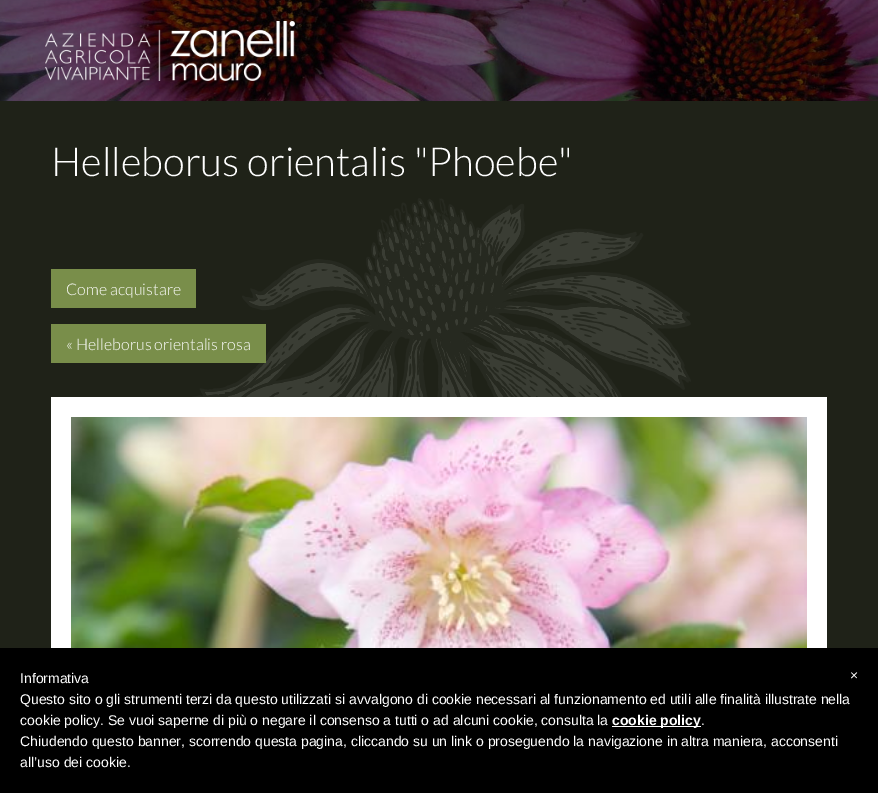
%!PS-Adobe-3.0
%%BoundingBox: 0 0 878 793
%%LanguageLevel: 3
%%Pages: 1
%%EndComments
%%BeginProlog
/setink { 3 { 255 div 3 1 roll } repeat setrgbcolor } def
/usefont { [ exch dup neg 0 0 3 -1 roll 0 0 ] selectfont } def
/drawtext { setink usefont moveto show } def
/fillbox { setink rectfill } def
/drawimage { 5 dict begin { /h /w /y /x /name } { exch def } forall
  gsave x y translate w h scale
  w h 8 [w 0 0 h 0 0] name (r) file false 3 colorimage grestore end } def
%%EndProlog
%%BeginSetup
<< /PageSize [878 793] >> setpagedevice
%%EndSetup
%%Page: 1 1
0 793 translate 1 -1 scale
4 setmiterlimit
0 0 878 793 31 34 24 fillbox
(assets/img1.rgb) 0 0 878 101 drawimage
(assets/img2.rgb) 45 21 250 60 drawimage
(assets/img3.rgb) 192 198 499 199 drawimage
(Helleborus orientalis "Phoebe") 51 176 /Lato-Light 40 255 255 255 drawtext
51 269 145 39 121 142 74 fillbox
(Come acquistare) 66 295 /Lato-Light 16 255 255 255 drawtext
51 324 215 39 121 142 74 fillbox
(« Helleborus orientalis rosa) 66 350 /Lato-Light 16 255 255 255 drawtext
51 397 776 251 255 255 255 fillbox
(assets/img4.rgb) 71 417 736 231 drawimage
0 648 878 145 0 0 0 fillbox
(Informativa) 20 683 /LiberationSans-Regular 14 255 255 255 drawtext
(Questo sito o gli strumenti terzi da questo utilizzati si avvalgono di cookie necessari al funzionamento ed utili alle finalità illustrate nella) 20 704 /LiberationSans-Regular 14 255 255 255 drawtext
(cookie policy. Se vuoi saperne di più o negare il consenso a tutti o ad alcuni cookie, consulta la) 20 725 /LiberationSans-Regular 14 255 255 255 drawtext
612 726 89 1 255 255 255 fillbox
(cookie policy) 612 725 /LiberationSans-Bold 14 255 255 255 drawtext
(.) 701 725 /LiberationSans-Regular 14 255 255 255 drawtext
(Chiudendo questo banner, scorrendo questa pagina, cliccando su un link o proseguendo la navigazione in altra maniera, acconsenti) 20 746 /LiberationSans-Regular 14 255 255 255 drawtext
(all’uso dei cookie.) 20 767 /LiberationSans-Regular 14 255 255 255 drawtext
(×) 850 680 /LiberationSans-Regular 14 255 255 255 drawtext
showpage
%%EOF
